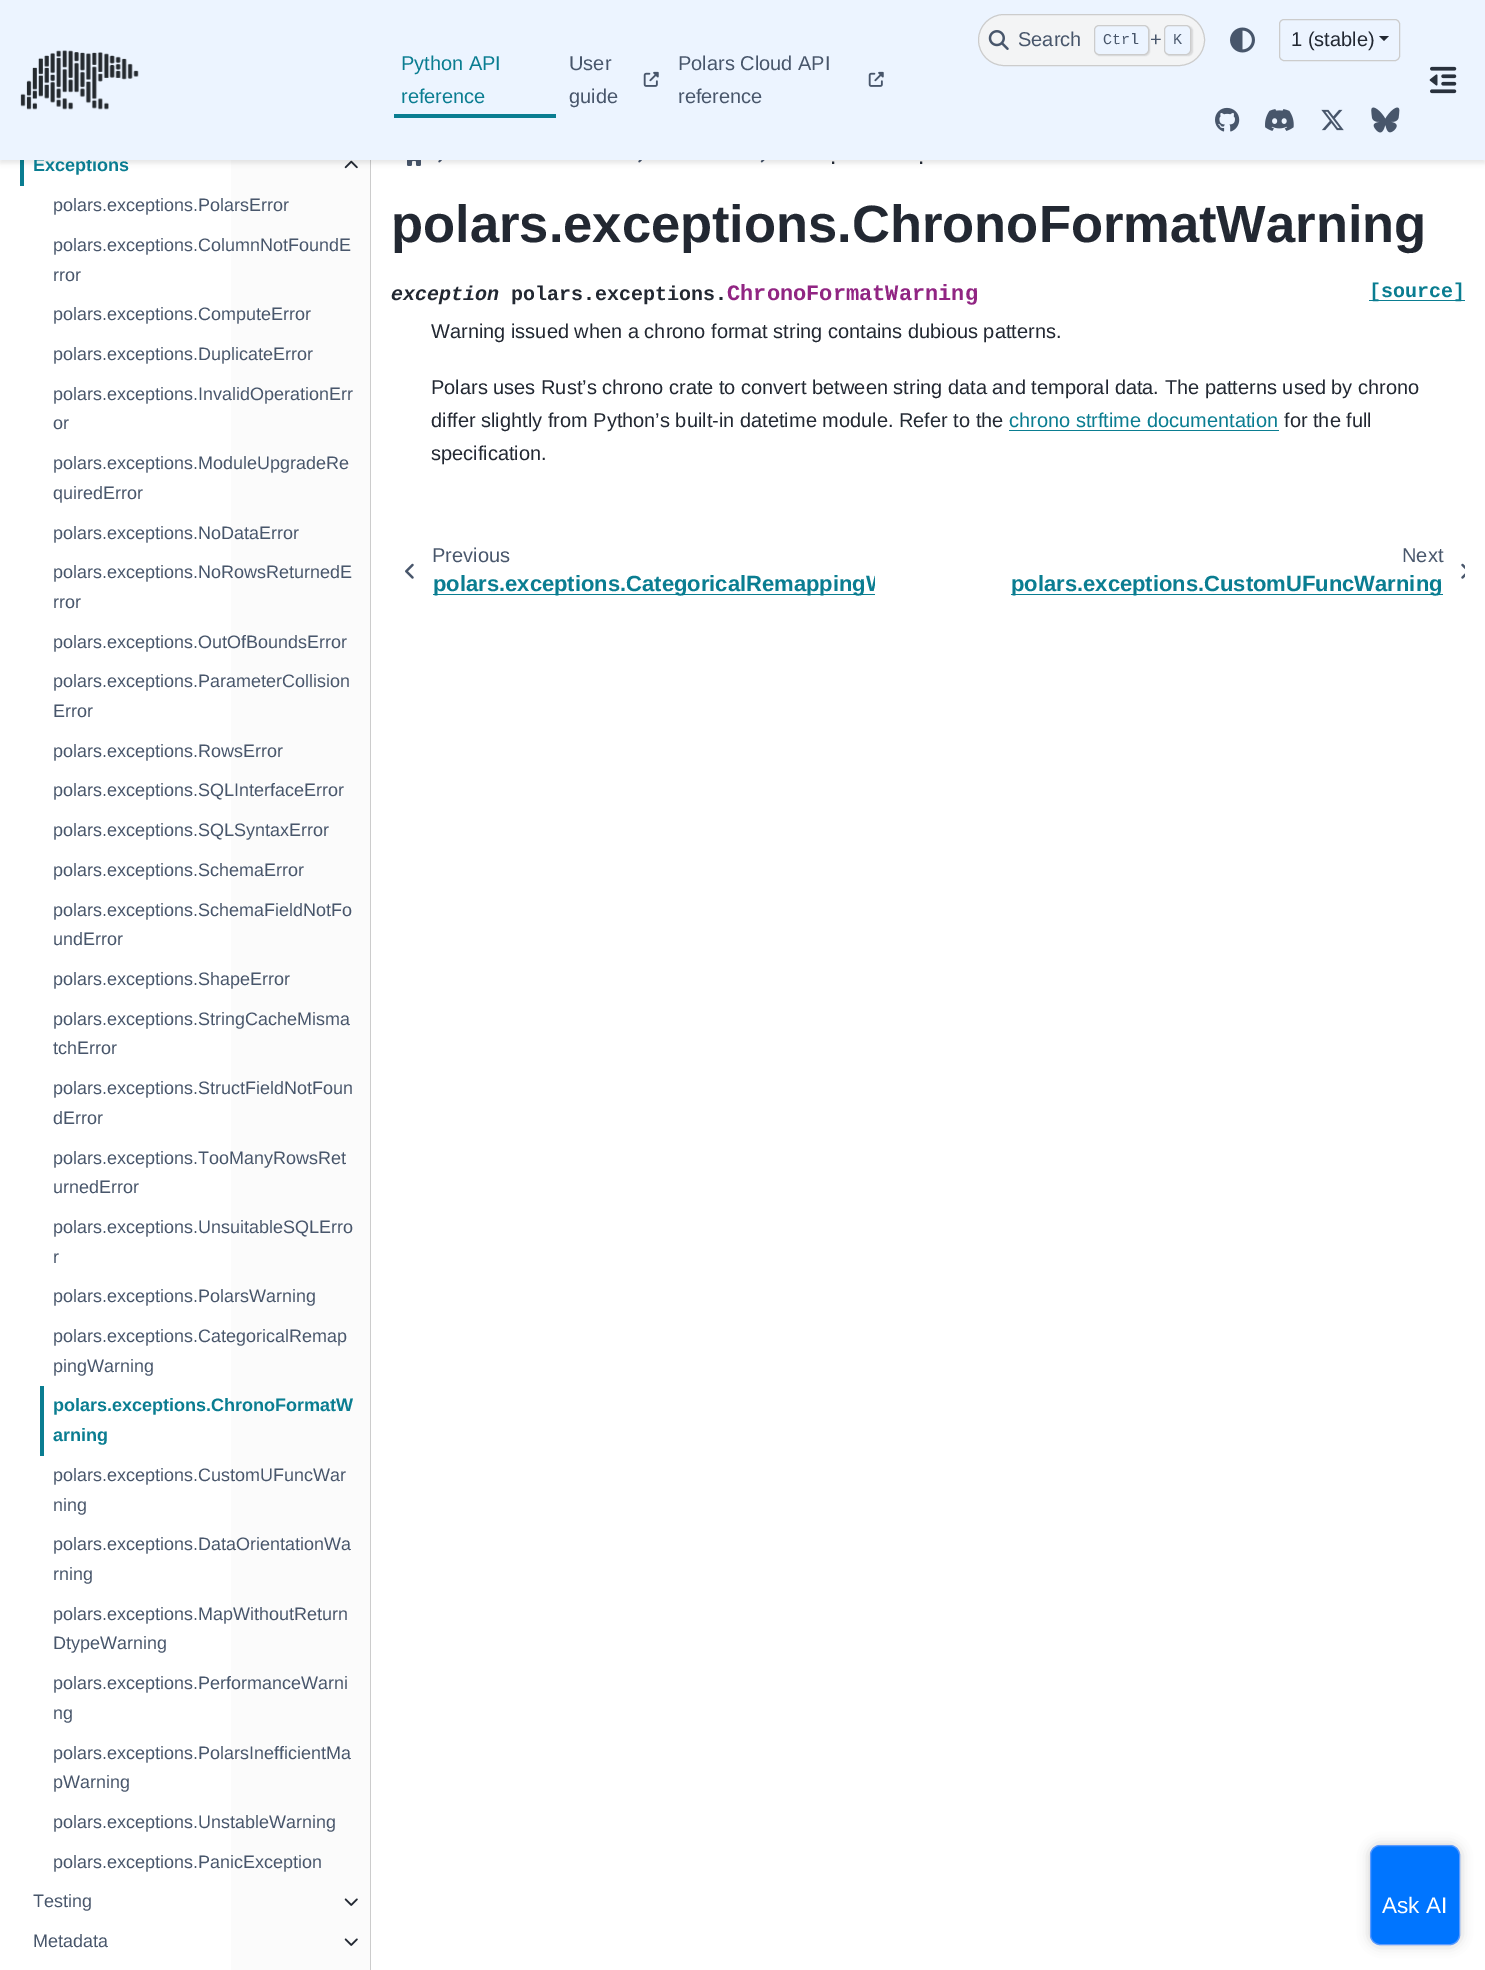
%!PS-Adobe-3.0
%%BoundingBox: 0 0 1485 1970
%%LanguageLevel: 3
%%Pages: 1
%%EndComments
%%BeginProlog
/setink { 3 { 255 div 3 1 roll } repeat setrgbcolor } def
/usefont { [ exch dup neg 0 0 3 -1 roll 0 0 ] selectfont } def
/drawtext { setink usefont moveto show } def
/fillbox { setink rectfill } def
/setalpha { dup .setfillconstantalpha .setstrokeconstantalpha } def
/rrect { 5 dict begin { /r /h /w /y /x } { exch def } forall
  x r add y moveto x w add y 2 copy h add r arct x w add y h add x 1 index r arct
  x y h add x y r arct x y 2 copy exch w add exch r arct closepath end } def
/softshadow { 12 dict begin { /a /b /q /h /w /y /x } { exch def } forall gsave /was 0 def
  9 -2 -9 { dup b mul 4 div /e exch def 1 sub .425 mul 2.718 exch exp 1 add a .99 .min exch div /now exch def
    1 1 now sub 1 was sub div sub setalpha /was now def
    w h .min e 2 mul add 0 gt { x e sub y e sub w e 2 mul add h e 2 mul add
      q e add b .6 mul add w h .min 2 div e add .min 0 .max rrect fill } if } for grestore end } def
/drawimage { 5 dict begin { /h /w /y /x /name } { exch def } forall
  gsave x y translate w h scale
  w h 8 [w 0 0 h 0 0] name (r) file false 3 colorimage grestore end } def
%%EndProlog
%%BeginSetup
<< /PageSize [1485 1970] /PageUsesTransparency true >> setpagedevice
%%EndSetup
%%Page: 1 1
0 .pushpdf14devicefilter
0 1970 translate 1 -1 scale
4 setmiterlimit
0 0 1485 1970 255 255 255 fillbox
gsave 231 160 moveto 370 160 lineto 370 1970 lineto 231 1970 lineto closepath clip newpath
<< /ShadingType 2 /ColorSpace /DeviceRGB /Coords [0 1066 370 1066] /Extend [true true] /Function << /FunctionType 2 /Domain [0 1] /C0 [1 1 1] /C1 [0.984 0.984 0.984] /N 1 >> >> shfill grestore
370 160 1 1810 204 204 204 fillbox
20 160 4 26 10 125 145 fillbox
(assets/img10.rgb) 344 160 14 9 drawimage
(assets/img12.rgb) 407 160 14 6 drawimage
(assets/img13.rgb) 438 160 4 3 drawimage
(assets/img13.rgb) 638 160 4 3 drawimage
(assets/img14.rgb) 760 160 5 3 drawimage
0 0 0 setink
0 3 1485 160 0 2.5 0.1 softshadow
(Exceptions) 33 171 /LiberationSans-Bold 18 10 125 145 drawtext
0 0 1485 160 236 244 255 fillbox
(assets/img1.rgb) 20 50 119 60 drawimage
243 244 245 setink
978.5 14.5 226 51 25.5 rrect gsave fill grestore
204 204 204 setink
stroke
(assets/img2.rgb) 988 30 21 20 drawimage
(Search) 1018 46 /LiberationSans-Regular 20 72 86 107 drawtext
0 0 0 setink
1095 26 55 30 5 0.5 0.1 softshadow
236 244 255 setink
1094.5 25.5 54 29 4.5 rrect gsave fill grestore
204 204 204 setink
stroke
(Ctrl) 1103 44 /LiberationMono-Regular 15 72 86 107 drawtext
(+) 1150 46 /LiberationSans-Regular 20 72 86 107 drawtext
0 0 0 setink
1165 26 28 30 5 0.5 0.1 softshadow
236 244 255 setink
1164.5 25.5 26 29 4.5 rrect gsave fill grestore
204 204 204 setink
stroke
(K) 1173 44 /LiberationMono-Regular 15 72 86 107 drawtext
(assets/img3.rgb) 1230 27 25 26 drawimage
204 204 204 setink
1279.5 19.5 120 41 4.5 rrect stroke
(1 \(stable\)) 1291 46 /LiberationSans-Regular 20 34 40 50 drawtext
1379 36 moveto 1389 36 lineto 1384 41 lineto closepath fill
(assets/img4.rgb) 1215 107 25 25 drawimage
(assets/img5.rgb) 1265 109 29 22 drawimage
(assets/img6.rgb) 1321 109 23 22 drawimage
(assets/img7.rgb) 1371 107 29 26 drawimage
(Python API) 401 70 /LiberationSans-Regular 20 10 125 145 drawtext
(reference) 401 103 /LiberationSans-Regular 20 10 125 145 drawtext
394 114 162 4 10 125 145 fillbox
(User) 569 70 /LiberationSans-Regular 20 72 86 107 drawtext
(assets/img8.rgb) 643 71 16 16 drawimage
(guide) 569 103 /LiberationSans-Regular 20 72 86 107 drawtext
(Polars Cloud API) 678 70 /LiberationSans-Regular 20 72 86 107 drawtext
(assets/img8.rgb) 868 71 16 16 drawimage
(reference) 678 103 /LiberationSans-Regular 20 72 86 107 drawtext
(assets/img9.rgb) 1429 66 28 28 drawimage
(polars.exceptions.PolarsError) 53 211 /LiberationSans-Regular 18 72 86 107 drawtext
(polars.exceptions.ColumnNotFoundE) 53 251 /LiberationSans-Regular 18 72 86 107 drawtext
(rror) 53 281 /LiberationSans-Regular 18 72 86 107 drawtext
(polars.exceptions.ComputeError) 53 320 /LiberationSans-Regular 18 72 86 107 drawtext
(polars.exceptions.DuplicateError) 53 360 /LiberationSans-Regular 18 72 86 107 drawtext
(polars.exceptions.InvalidOperationErr) 53 400 /LiberationSans-Regular 18 72 86 107 drawtext
(or) 53 429 /LiberationSans-Regular 18 72 86 107 drawtext
(polars.exceptions.ModuleUpgradeRe) 53 469 /LiberationSans-Regular 18 72 86 107 drawtext
(quiredError) 53 499 /LiberationSans-Regular 18 72 86 107 drawtext
(polars.exceptions.NoDataError) 53 539 /LiberationSans-Regular 18 72 86 107 drawtext
(polars.exceptions.NoRowsReturnedE) 53 578 /LiberationSans-Regular 18 72 86 107 drawtext
(rror) 53 608 /LiberationSans-Regular 18 72 86 107 drawtext
(polars.exceptions.OutOfBoundsError) 53 648 /LiberationSans-Regular 18 72 86 107 drawtext
(polars.exceptions.ParameterCollision) 53 687 /LiberationSans-Regular 18 72 86 107 drawtext
(Error) 53 717 /LiberationSans-Regular 18 72 86 107 drawtext
(polars.exceptions.RowsError) 53 757 /LiberationSans-Regular 18 72 86 107 drawtext
(polars.exceptions.SQLInterfaceError) 53 796 /LiberationSans-Regular 18 72 86 107 drawtext
(polars.exceptions.SQLSyntaxError) 53 836 /LiberationSans-Regular 18 72 86 107 drawtext
(polars.exceptions.SchemaError) 53 876 /LiberationSans-Regular 18 72 86 107 drawtext
(polars.exceptions.SchemaFieldNotFo) 53 916 /LiberationSans-Regular 18 72 86 107 drawtext
(undError) 53 945 /LiberationSans-Regular 18 72 86 107 drawtext
(polars.exceptions.ShapeError) 53 985 /LiberationSans-Regular 18 72 86 107 drawtext
(polars.exceptions.StringCacheMisma) 53 1025 /LiberationSans-Regular 18 72 86 107 drawtext
(tchError) 53 1054 /LiberationSans-Regular 18 72 86 107 drawtext
(polars.exceptions.StructFieldNotFoun) 53 1094 /LiberationSans-Regular 18 72 86 107 drawtext
(dError) 53 1124 /LiberationSans-Regular 18 72 86 107 drawtext
(polars.exceptions.TooManyRowsRet) 53 1164 /LiberationSans-Regular 18 72 86 107 drawtext
(urnedError) 53 1193 /LiberationSans-Regular 18 72 86 107 drawtext
(polars.exceptions.UnsuitableSQLErro) 53 1233 /LiberationSans-Regular 18 72 86 107 drawtext
(r) 53 1263 /LiberationSans-Regular 18 72 86 107 drawtext
(polars.exceptions.PolarsWarning) 53 1302 /LiberationSans-Regular 18 72 86 107 drawtext
(polars.exceptions.CategoricalRemap) 53 1342 /LiberationSans-Regular 18 72 86 107 drawtext
(pingWarning) 53 1372 /LiberationSans-Regular 18 72 86 107 drawtext
40 1386 4 70 10 125 145 fillbox
(polars.exceptions.ChronoFormatW) 53 1411 /LiberationSans-Bold 18 10 125 145 drawtext
(arning) 53 1441 /LiberationSans-Bold 18 10 125 145 drawtext
(polars.exceptions.CustomUFuncWar) 53 1481 /LiberationSans-Regular 18 72 86 107 drawtext
(ning) 53 1511 /LiberationSans-Regular 18 72 86 107 drawtext
(polars.exceptions.DataOrientationWa) 53 1550 /LiberationSans-Regular 18 72 86 107 drawtext
(rning) 53 1580 /LiberationSans-Regular 18 72 86 107 drawtext
(polars.exceptions.MapWithoutReturn) 53 1620 /LiberationSans-Regular 18 72 86 107 drawtext
(DtypeWarning) 53 1649 /LiberationSans-Regular 18 72 86 107 drawtext
(polars.exceptions.PerformanceWarni) 53 1689 /LiberationSans-Regular 18 72 86 107 drawtext
(ng) 53 1719 /LiberationSans-Regular 18 72 86 107 drawtext
(polars.exceptions.PolarsInefficientMa) 53 1759 /LiberationSans-Regular 18 72 86 107 drawtext
(pWarning) 53 1788 /LiberationSans-Regular 18 72 86 107 drawtext
(polars.exceptions.UnstableWarning) 53 1828 /LiberationSans-Regular 18 72 86 107 drawtext
(polars.exceptions.PanicException) 53 1868 /LiberationSans-Regular 18 72 86 107 drawtext
(Testing) 33 1907 /LiberationSans-Regular 18 72 86 107 drawtext
(assets/img11.rgb) 344 1898 14 8 drawimage
(Metadata) 33 1947 /LiberationSans-Regular 18 72 86 107 drawtext
(assets/img11.rgb) 344 1938 14 8 drawimage
(.) 831 164 /LiberationSans-Bold 16 34 40 50 drawtext
(.) 919 164 /LiberationSans-Bold 16 34 40 50 drawtext
(polars.exceptions.ChronoFormatWarning) 391 242 /LiberationSans-Bold 52.5 34 40 50 drawtext
(exception) 391 300 /LiberationMono-BoldItalic 20 34 40 50 drawtext
(polars.exceptions.) 511 300 /LiberationMono-Bold 20 34 40 50 drawtext
(ChronoFormatWarning) 727 300 /LiberationMono-Bold 22 145 37 131 drawtext
1369 300 96 1 10 125 145 fillbox
([source]) 1369 297 /LiberationMono-Bold 20 10 125 145 drawtext
(Warning issued when a chrono format string contains dubious patterns.) 431 338 /LiberationSans-Regular 20 34 40 50 drawtext
(Polars uses Rust’s chrono crate to convert between string data and temporal data. The patterns used by chrono) 431 394 /LiberationSans-Regular 20 34 40 50 drawtext
(differ slightly from Python’s built-in datetime module. Refer to the) 431 427 /LiberationSans-Regular 20 34 40 50 drawtext
(chrono strftime documentation) 1009 427 /LiberationSans-Regular 20 10 125 145 drawtext
1009 430 270 1 10 125 145 fillbox
(for the full) 1284 427 /LiberationSans-Regular 20 34 40 50 drawtext
(specification.) 431 460 /LiberationSans-Regular 20 34 40 50 drawtext
(assets/img15.rgb) 405 563 9 16 drawimage
(Previous) 432 562 /LiberationSans-Regular 20 72 86 107 drawtext
433 594 442 1 10 125 145 fillbox
gsave
391 531 484 79 rectclip
(polars.exceptions.CategoricalRemappingW) 433 591 /LiberationSans-Bold 22 10 125 145 drawtext
grestore
(Next) 1402 562 /LiberationSans-Regular 20 72 86 107 drawtext
1011 594 432 1 10 125 145 fillbox
(polars.exceptions.CustomUFuncWarning) 1011 591 /LiberationSans-Bold 22 10 125 145 drawtext
(assets/img16.rgb) 1461 563 4 16 drawimage
0 0 0 setink
1370 1845 90 100 10 6 0.2 softshadow
0 117 255 setink
1370.5 1845.5 89 99 9.5 rrect gsave fill grestore
91 154 255 setink
stroke
(Ask AI) 1382 1913 /LiberationSans-Regular 22.5 255 255 255 drawtext
.poppdf14devicefilter showpage
%%EOF
